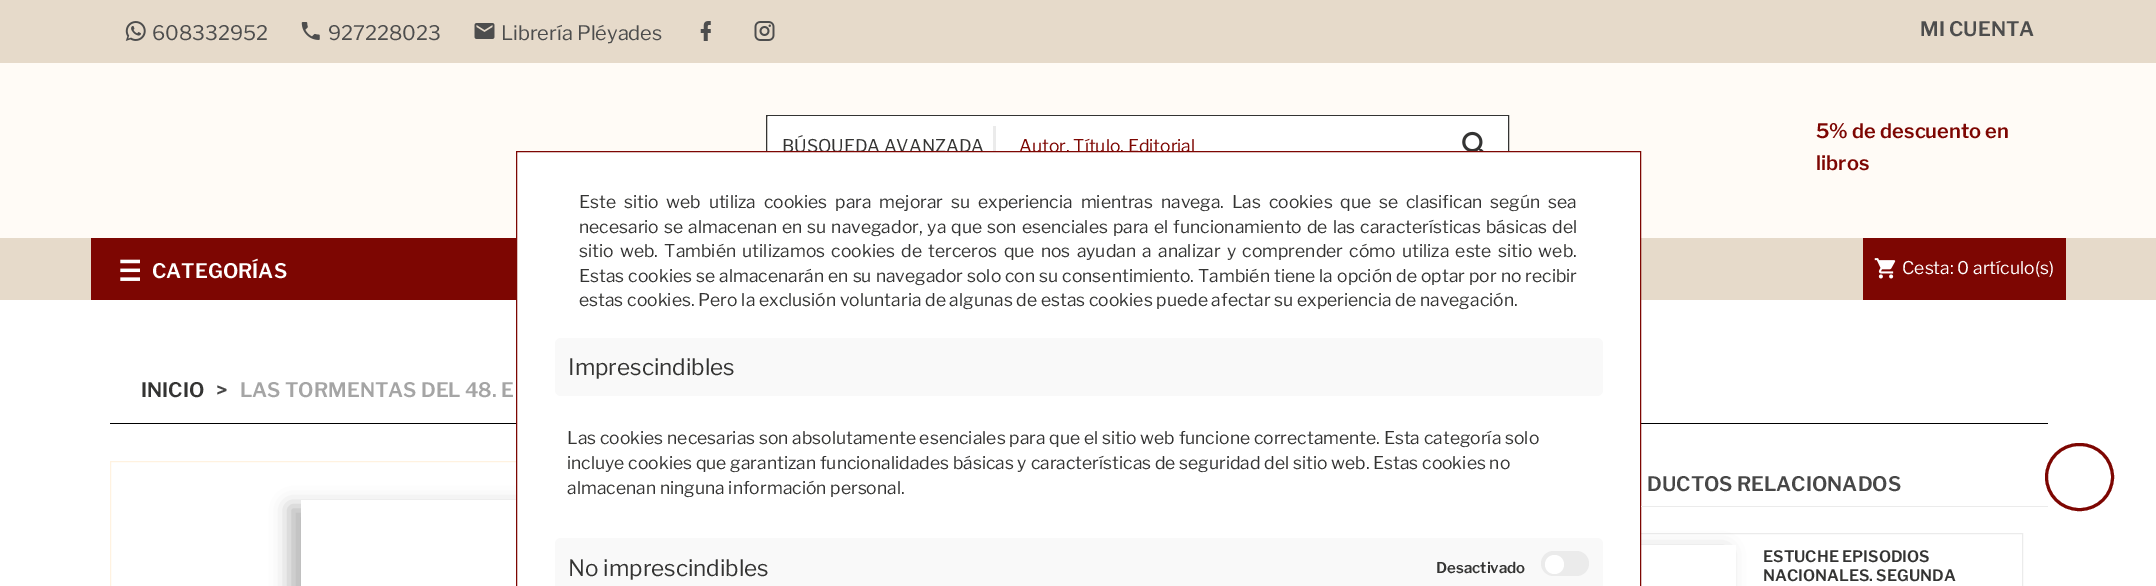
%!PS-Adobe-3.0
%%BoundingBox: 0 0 2156 586
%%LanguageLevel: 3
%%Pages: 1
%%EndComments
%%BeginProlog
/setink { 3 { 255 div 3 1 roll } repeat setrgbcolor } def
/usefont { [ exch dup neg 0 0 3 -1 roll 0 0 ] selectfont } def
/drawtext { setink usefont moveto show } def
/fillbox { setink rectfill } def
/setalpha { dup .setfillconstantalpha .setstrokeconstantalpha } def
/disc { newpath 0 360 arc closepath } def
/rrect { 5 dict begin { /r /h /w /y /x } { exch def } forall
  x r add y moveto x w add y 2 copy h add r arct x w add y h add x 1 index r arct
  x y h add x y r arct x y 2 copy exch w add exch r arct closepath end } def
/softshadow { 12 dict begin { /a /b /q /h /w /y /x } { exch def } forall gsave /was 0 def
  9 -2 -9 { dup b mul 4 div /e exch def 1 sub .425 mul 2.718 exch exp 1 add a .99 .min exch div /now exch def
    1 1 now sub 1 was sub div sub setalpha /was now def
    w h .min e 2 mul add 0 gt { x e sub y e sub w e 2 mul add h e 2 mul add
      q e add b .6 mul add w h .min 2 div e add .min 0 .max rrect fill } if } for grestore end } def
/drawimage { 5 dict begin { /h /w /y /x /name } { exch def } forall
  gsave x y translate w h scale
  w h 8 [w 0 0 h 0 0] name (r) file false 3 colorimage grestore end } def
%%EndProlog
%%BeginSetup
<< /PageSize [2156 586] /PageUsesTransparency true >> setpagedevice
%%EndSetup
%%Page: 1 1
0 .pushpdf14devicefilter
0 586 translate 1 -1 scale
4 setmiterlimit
0 0 2156 586 255 255 255 fillbox
0 0 2156 63 230 218 202 fillbox
(assets/img1.rgb) 125 21 21 20 drawimage
(608332952) 152 40 /LibreFranklin-Regular 20 77 77 77 drawtext
(assets/img2.rgb) 301 22 19 18 drawimage
(927228023) 328 40 /LibreFranklin-Regular 20 77 77 77 drawtext
(assets/img3.rgb) 474 23 21 16 drawimage
(Librería Pléyades) 501 40 /LibreFranklin-Regular 20 77 77 77 drawtext
(assets/img4.rgb) 700 21 11 20 drawimage
(assets/img5.rgb) 754 21 21 20 drawimage
(MI CUENTA) 1920 36 /LibreFranklin-SemiBold 20 77 77 77 drawtext
0 63 2156 175 255 251 246 fillbox
52 52 51 setink
766.5 115.5 742 62 rectstroke
768 116 740 35 255 255 255 fillbox
(BÚSQUEDA AVANZADA) 782 152 /LibreFranklin-Regular 17.5 52 52 51 drawtext
993 126 3 25 235 235 235 fillbox
(Autor, Título, Editorial) 1019 152 /LibreFranklin-Regular 17.5 125 6 2 drawtext
(assets/img6.rgb) 1462 131 22 20 drawimage
(5% de descuento en) 1816 138 /LibreFranklin-SemiBold 20 125 6 2 drawtext
(libros) 1816 170 /LibreFranklin-SemiBold 20 125 6 2 drawtext
0 238 2156 62 230 218 202 fillbox
91 238 425 62 125 6 2 fillbox
(assets/img7.rgb) 120 259 20 22 drawimage
(CATEGORÍAS) 152 278 /LibreFranklin-SemiBold 20 255 255 255 drawtext
1863 238 203 62 125 6 2 fillbox
(assets/img8.rgb) 1874 258 22 21 drawimage
(Cesta: 0 artículo\(s\)) 1902 274 /LibreFranklin-Regular 17.5 255 255 255 drawtext
110 423 1938 1 0 0 0 fillbox
255 242 224 setink
110.5 461.5 702 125 rectstroke
gsave
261 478 moveto 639 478 lineto 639 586 lineto 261 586 lineto closepath 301 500 moveto 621 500 lineto 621 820 lineto 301 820 lineto closepath eoclip newpath
185 185 185 setink
289 506 322 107 0 9 1 softshadow
grestore
235 235 235 setink
1616.5 533.5 406 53 rectstroke
gsave
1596 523 moveto 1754 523 lineto 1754 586 lineto 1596 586 lineto closepath 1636 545 moveto 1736 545 lineto 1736 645 lineto 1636 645 lineto closepath eoclip newpath
185 185 185 setink
1624 551 102 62 0 9 1 softshadow
grestore
255 255 255 setink
516.5 151.5 moveto 1640.5 151.5 lineto 1640.5 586.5 lineto 516.5 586.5 lineto closepath gsave fill grestore
125 6 2 setink
stroke
52 52 51 setink
579 208 moveto 4.1 0 32 (Este sitio web utiliza cookies para mejorar su experiencia mientras navega. Las cookies que se clasifican según sea) widthshow
579 233 moveto 1.25 0 32 (necesario se almacenan en su navegador, ya que son esenciales para el funcionamiento de las características básicas del) widthshow
579 257 moveto 2.5 0 32 (sitio web. También utilizamos cookies de terceros que nos ayudan a analizar y comprender cómo utiliza este sitio web.) widthshow
579 282 moveto 0.25 0 32 (Estas cookies se almacenarán en su navegador solo con su consentimiento. También tiene la opción de optar por no recibir) widthshow
(estas cookies. Pero la exclusión voluntaria de algunas de estas cookies puede afectar su experiencia de navegación.) 579 306 /LibreFranklin-Regular 17.5 52 52 51 drawtext
249 249 249 setink
555 338 1048 58 6 rrect fill
(Imprescindibles) 568 375 /LibreFranklin-Regular 22.5 52 52 51 drawtext
(Las cookies necesarias son absolutamente esenciales para que el sitio web funcione correctamente. Esta categoría solo) 567 444 /LibreFranklin-Regular 17.5 52 52 51 drawtext
(incluye cookies que garantizan funcionalidades básicas y características de seguridad del sitio web. Estas cookies no) 567 469 /LibreFranklin-Regular 17.5 52 52 51 drawtext
(almacenan ninguna información personal.) 567 494 /LibreFranklin-Regular 17.5 52 52 51 drawtext
249 249 249 setink
561 538 moveto 1597 538 lineto 1600.5 538 1603 540.5 1603 544 curveto 1603 586 lineto 555 586 lineto 555 544 lineto 555 540.5 557.5 538 561 538 curveto closepath fill
(No imprescindibles) 568 576 /LibreFranklin-Regular 22.5 52 52 51 drawtext
235 235 235 setink
1541 551 48 25 12.5 rrect fill
(Desactivado) 1436 573 /LibreFranklin-SemiBold 15 52 52 51 drawtext
255 255 255 setink
1554.5 564.5 9.5 disc fill
(INICIO) 141 397 /LibreFranklin-SemiBold 20 52 52 51 drawtext
(>) 216 397 /LibreFranklin-SemiBold 20 71 71 71 drawtext
(LAS TORMENTAS DEL 48. E) 240 397 /LibreFranklin-SemiBold 20 165 165 165 drawtext
1641 506 407 1 235 235 235 fillbox
(DUCTOS RELACIONADOS) 1647 491 /LibreFranklin-SemiBold 20 71 71 71 drawtext
(ESTUCHE EPISODIOS) 1763 562 /LibreFranklin-SemiBold 15.75 52 52 51 drawtext
(NACIONALES. SEGUNDA) 1763 581 /LibreFranklin-SemiBold 15.75 52 52 51 drawtext
125 6 2 setink
3 setlinewidth
2046.5 444.5 66 65 32.5 rrect stroke
.poppdf14devicefilter showpage
%%EOF
